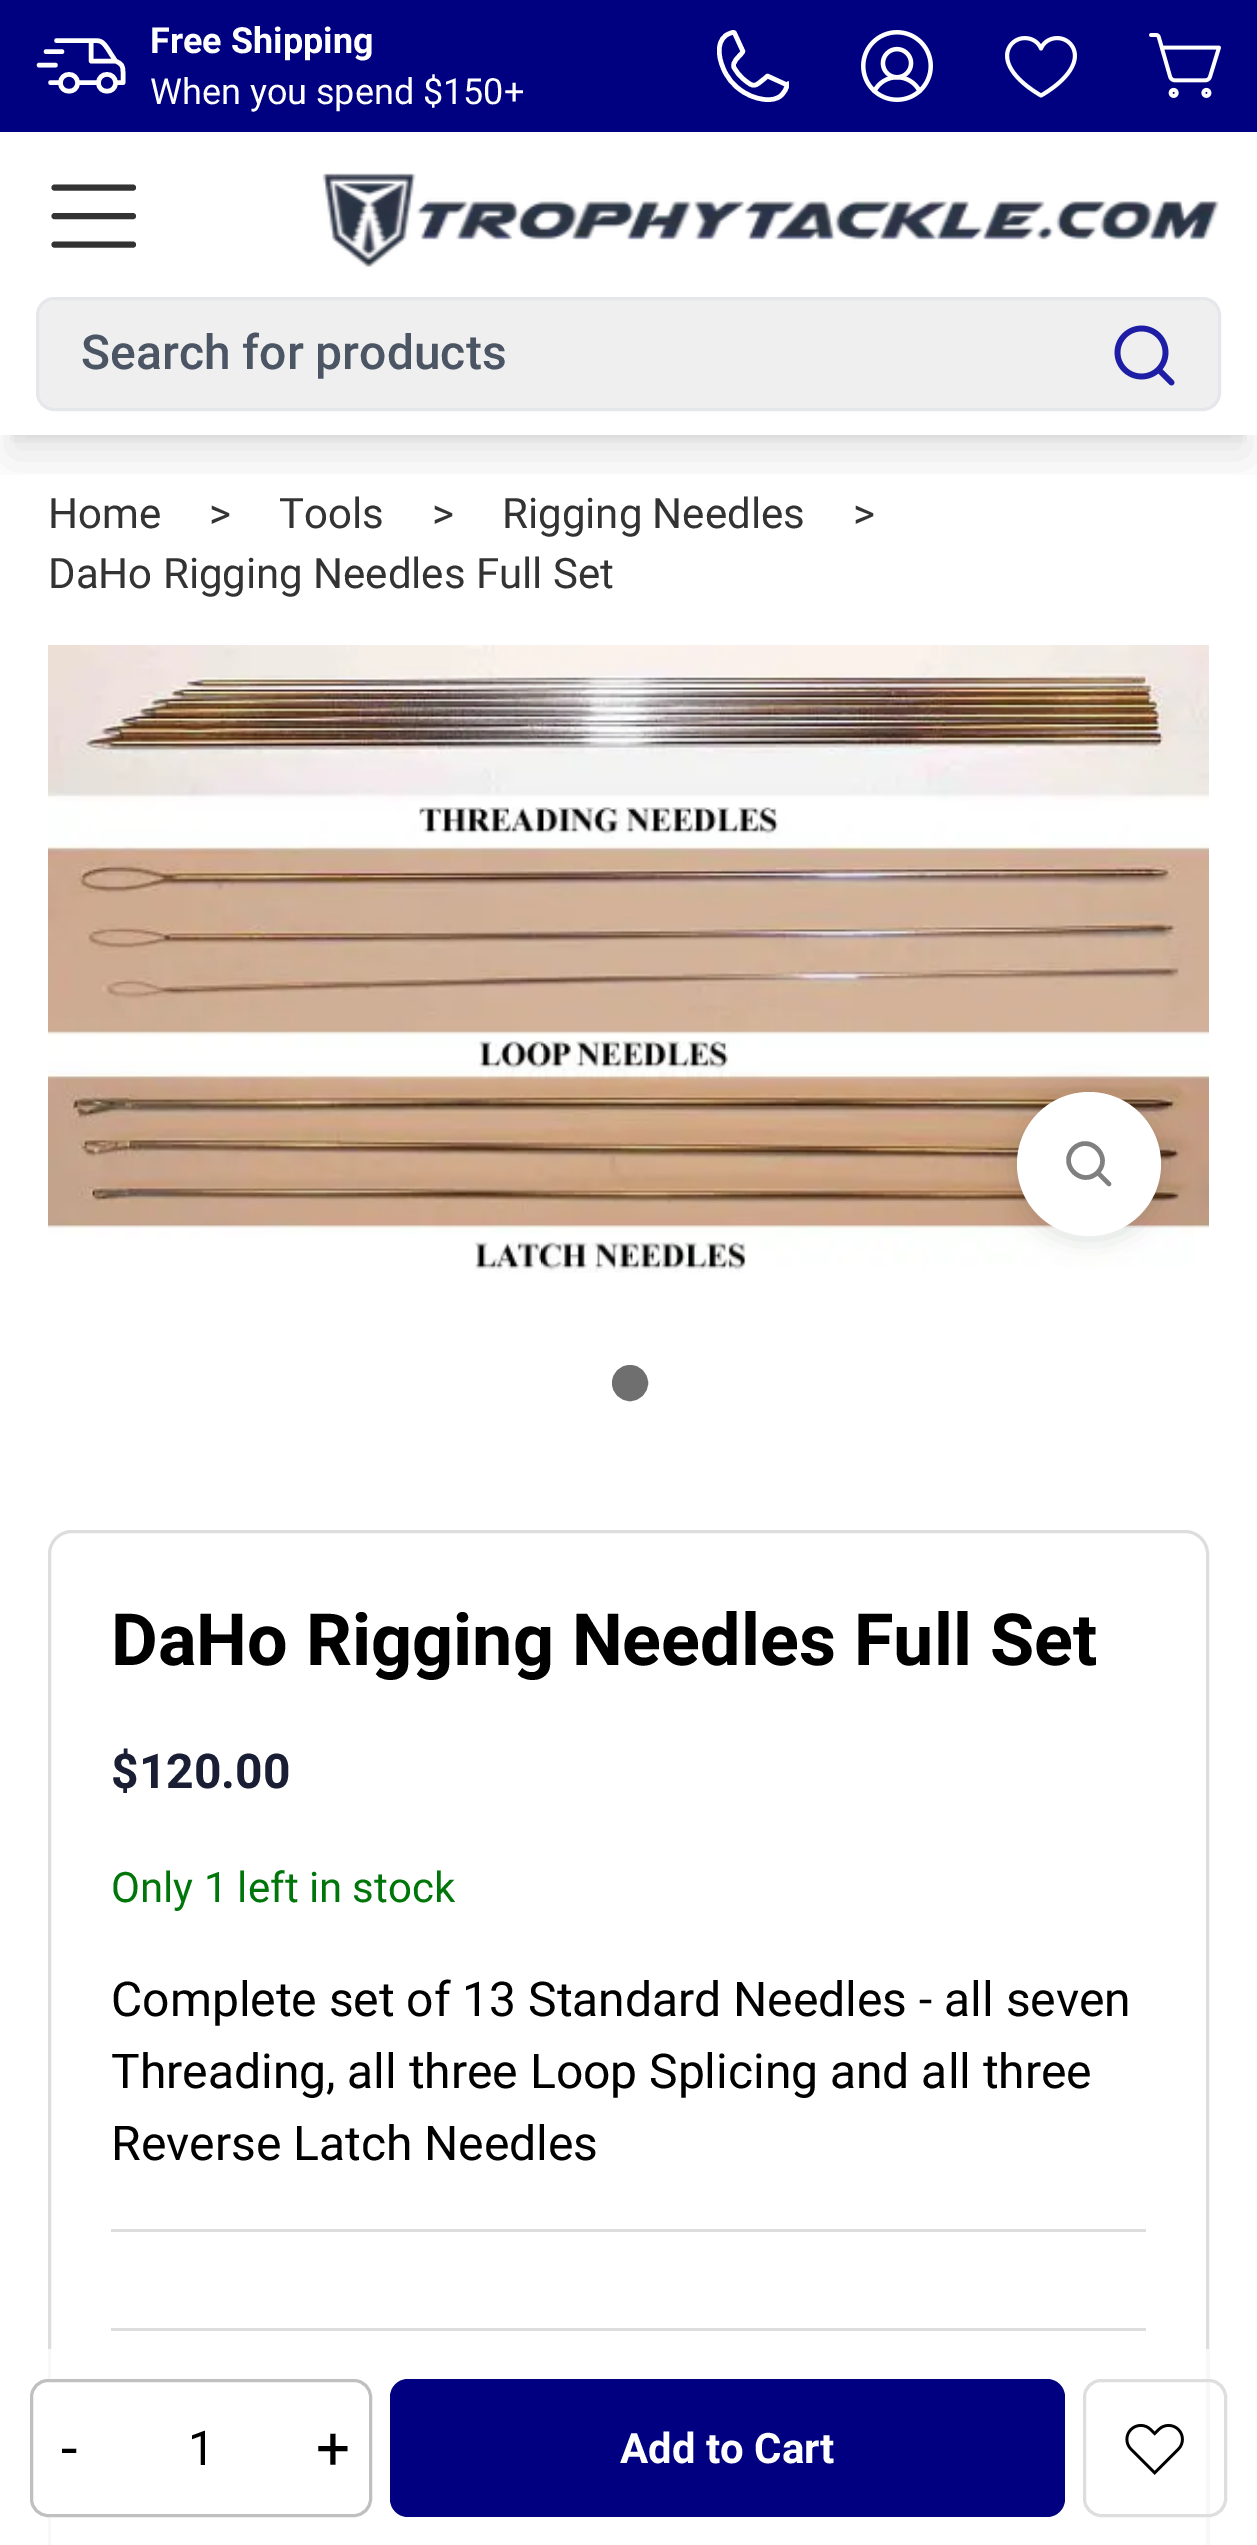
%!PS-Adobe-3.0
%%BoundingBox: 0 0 1257 2545
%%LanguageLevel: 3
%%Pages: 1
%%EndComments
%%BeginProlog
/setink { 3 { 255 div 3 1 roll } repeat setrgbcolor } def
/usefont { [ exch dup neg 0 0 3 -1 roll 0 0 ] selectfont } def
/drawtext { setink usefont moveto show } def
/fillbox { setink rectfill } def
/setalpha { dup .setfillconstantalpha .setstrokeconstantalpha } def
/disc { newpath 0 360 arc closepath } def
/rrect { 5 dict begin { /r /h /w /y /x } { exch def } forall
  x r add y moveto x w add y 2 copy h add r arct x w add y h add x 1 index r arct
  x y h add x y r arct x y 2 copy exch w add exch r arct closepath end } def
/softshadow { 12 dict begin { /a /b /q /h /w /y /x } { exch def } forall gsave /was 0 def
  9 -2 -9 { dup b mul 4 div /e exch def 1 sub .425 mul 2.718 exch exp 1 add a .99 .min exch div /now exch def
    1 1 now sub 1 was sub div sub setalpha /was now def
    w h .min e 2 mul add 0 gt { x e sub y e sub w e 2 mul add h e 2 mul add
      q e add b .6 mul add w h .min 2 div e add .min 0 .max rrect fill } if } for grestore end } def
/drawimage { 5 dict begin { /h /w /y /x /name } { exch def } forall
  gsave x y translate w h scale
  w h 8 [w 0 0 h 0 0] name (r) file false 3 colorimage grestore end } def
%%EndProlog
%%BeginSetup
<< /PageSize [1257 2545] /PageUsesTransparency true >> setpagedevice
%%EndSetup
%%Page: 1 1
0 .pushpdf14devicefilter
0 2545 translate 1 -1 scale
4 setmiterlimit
0 0 1257 2545 255 255 255 fillbox
gsave
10 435 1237 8 rectclip
0 0 0 setink
12 24 1233 411 0 9 0.1 softshadow
grestore
gsave
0 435 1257 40 rectclip
0 0 0 setink
9 39 1239 417 0 22.5 0.1 softshadow
grestore
0 0 1257 132 0 1 128 fillbox
255 255 255 setink
4.5 setlinewidth
1 setlinecap
1 setlinejoin
56.5 40.5 moveto 91 40.5 lineto 91 40.5 moveto 100.5 40.5 102 40.5 107.5 48.5 curveto 115.5 61 lineto 91 40.5 moveto 91 61 lineto 115.5 61 lineto 115.5 61 moveto 122 64 123 65.5 123 72.5 curveto 123 82.5 lineto 115.5 82.5 lineto 50.5 82.5 moveto 60.5 82.5 lineto 46 51.5 moveto 62 51.5 lineto 39 65 moveto 55.5 65 lineto 98.5 82.5 moveto 77.5 82.5 lineto 77.5 83 moveto 77.5 94 60.5 94 60.5 83 curveto 60.5 71.5 77.5 71.5 77.5 83 curveto closepath 115.5 83 moveto 115.5 94 98.5 94 98.5 83 curveto 98.5 71.5 115.5 71.5 115.5 83 curveto closepath stroke
(Free Shipping) 150 53 /Roboto-Bold 36 255 255 255 drawtext
(When you spend $150+) 150 104 /Roboto-Regular 36 255 255 255 drawtext
gsave
717 30 72 72 rectclip
786 84.5 moveto 786.5 85 lineto 788.5 83.5 lineto 786.5 85 lineto 788 87 783 94 781 95.5 curveto 776.5 99.5 771 100 765 99.5 curveto 755 98.5 745.5 94.5 738 88 curveto 732.5 84 728.5 78.5 725.5 73 curveto 719.5 62 714.5 43 726.5 35 curveto 727.5 34.5 733.5 31 734.5 33 curveto 743 51.5 lineto 741.5 53.5 lineto 739 56.5 731.5 62.5 734 67.5 curveto 736.5 72 740 76.5 744 79.5 curveto 754.5 88.5 755 86 764 79 curveto 767.5 76 lineto closepath stroke
grestore
(assets/img1.rgb) 861 30 72 72 drawimage
(assets/img2.rgb) 1005 36 72 62 drawimage
(assets/img3.rgb) 1149 33 72 65 drawimage
51 51 51 setink
6 setlinewidth
54.5 216 moveto 133 216 lineto stroke
54.5 187.5 moveto 133 187.5 lineto stroke
54.5 244.5 moveto 133 244.5 lineto stroke
(assets/img4.rgb) 322 173 897 94 drawimage
239 239 239 setink
37.5 298.5 1182 111 16.5 rrect gsave fill grestore
229 231 235 setink
3 setlinewidth
0 setlinecap
0 setlinejoin
stroke
(Search for products) 81 369 /Roboto-Medium 48 75 85 99 drawtext
(assets/img5.rgb) 1114 325 61 61 drawimage
(Home) 48 528 /Roboto-Regular 42 51 51 51 drawtext
(>) 209 528 /Roboto-Regular 42 51 51 51 drawtext
(Tools) 279 528 /Roboto-Regular 42 51 51 51 drawtext
(>) 432 528 /Roboto-Regular 42 51 51 51 drawtext
(Rigging Needles) 502 528 /Roboto-Regular 42 51 51 51 drawtext
(>) 853 528 /Roboto-Regular 42 51 51 51 drawtext
(DaHo Rigging Needles Full Set) 48 588 /Roboto-Regular 42 51 51 51 drawtext
(assets/img6.rgb) 48 645 1161 628 drawimage
0 0 0 setink
1017 1095 144 144 72 13.5 0.12 softshadow
255 255 255 setink
1089 1164 72 disc fill
128 128 128 setink
4.5 setlinewidth
1 setlinecap
1 setlinejoin
1109 1184 moveto 1097.5 1172.5 lineto 1097.5 1172.5 moveto 1113 1157 1089.5 1133 1073.5 1148.5 curveto 1058 1164.5 1082 1188 1097.5 1172.5 curveto closepath stroke
111 111 111 setink
630 1383 16.5 disc gsave fill grestore
3 setlinewidth
0 setlinecap
0 setlinejoin
stroke
221 221 221 setink
49.5 1531.5 1158 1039 22.5 rrect stroke
(DaHo Rigging Needles Full Set) 111 1665 /Roboto-Bold 72 0 0 0 drawtext
($120.00) 111 1788 /Roboto-Bold 48 25 30 52 drawtext
(Only 1 left in stock) 111 1902 /Roboto-Regular 42 0 118 10 drawtext
(Complete set of 13 Standard Needles - all seven) 111 2016 /Roboto-Regular 48 0 0 0 drawtext
(Threading, all three Loop Splicing and all three) 111 2088 /Roboto-Regular 48 0 0 0 drawtext
(Reverse Latch Needles) 111 2160 /Roboto-Regular 48 0 0 0 drawtext
111 2229 1035 3 221 221 221 fillbox
111 2328 1035 3 221 221 221 fillbox
0.8 setalpha
48 2349 1161 196 255 255 255 fillbox
1 setalpha
31.5 2380.5 339 135 16.5 rrect gsave fill grestore
192 192 192 setink
stroke
(-) 61 2469 /Roboto-Regular 60 0 0 0 drawtext
(1) 188 2465 /Roboto-Regular 48 0 0 0 drawtext
(+) 316 2469 /Roboto-Regular 60 0 0 0 drawtext
0 0 128 setink
390 2379 675 138 18 rrect fill
(Add to Cart) 620 2463 /Roboto-Bold 42 255 255 255 drawtext
222 222 222 setink
1084.5 2380.5 141 135 16.5 rrect stroke
(assets/img7.rgb) 1125 2423 59 52 drawimage
.poppdf14devicefilter showpage
%%EOF
